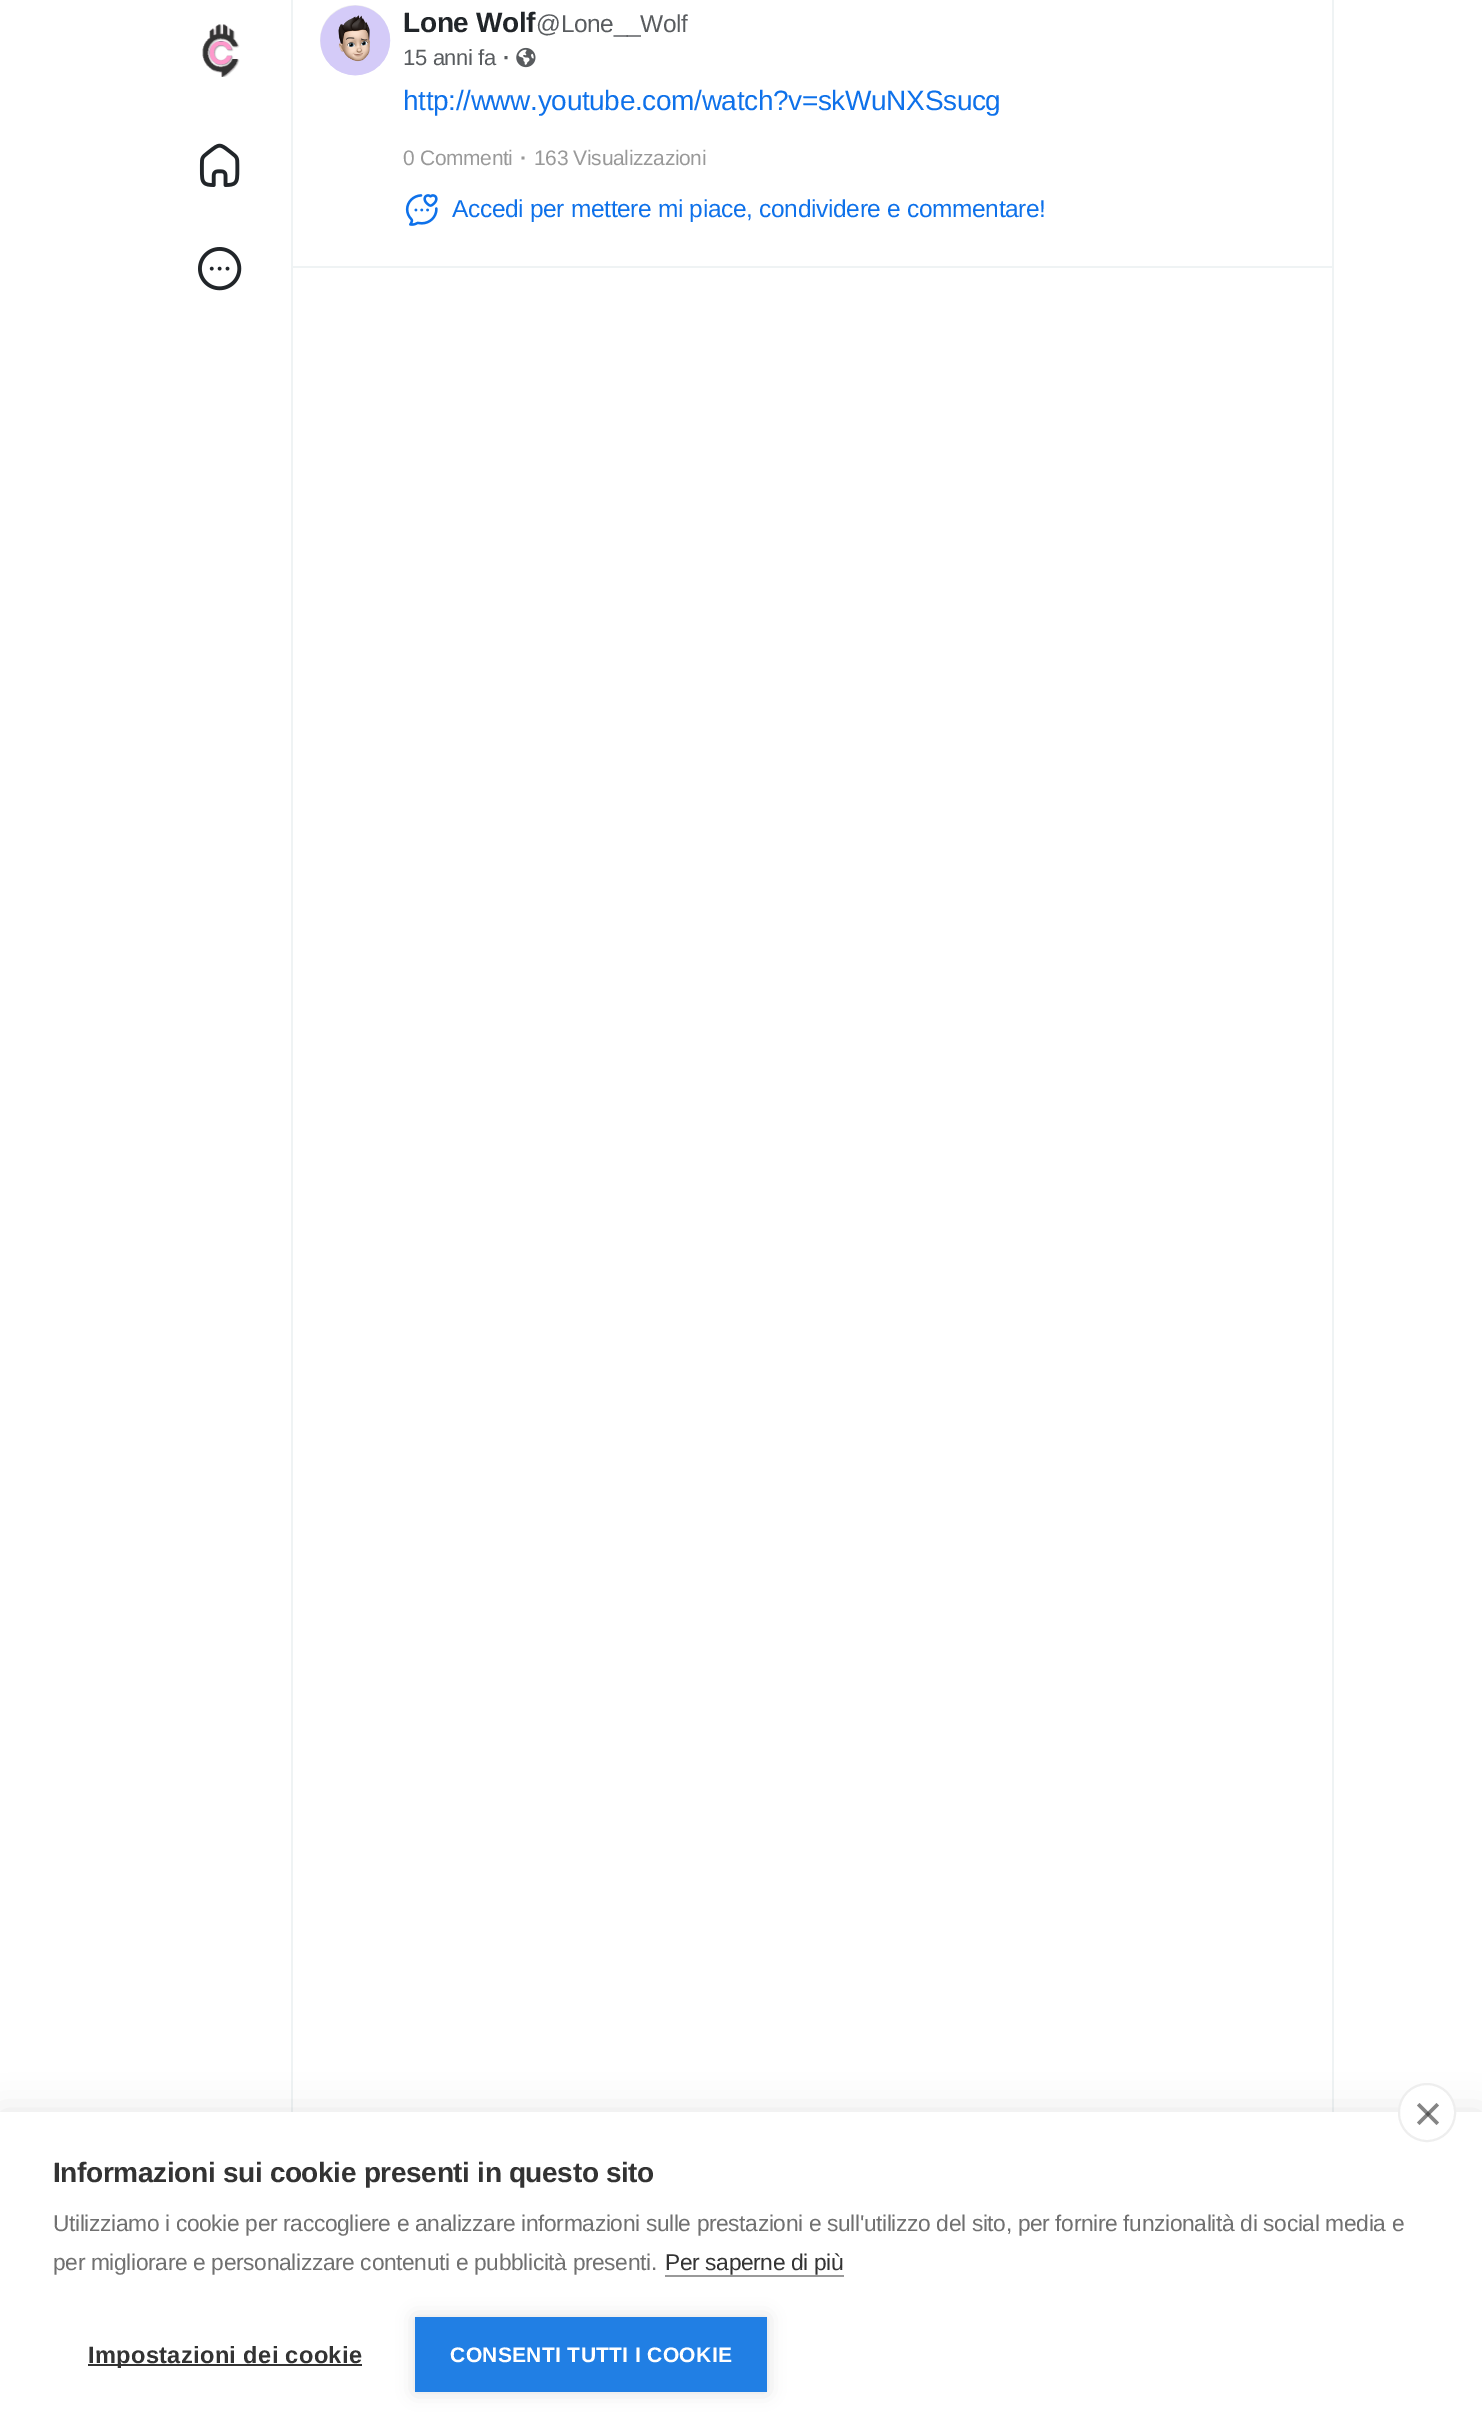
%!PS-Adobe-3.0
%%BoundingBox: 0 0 1482 2435
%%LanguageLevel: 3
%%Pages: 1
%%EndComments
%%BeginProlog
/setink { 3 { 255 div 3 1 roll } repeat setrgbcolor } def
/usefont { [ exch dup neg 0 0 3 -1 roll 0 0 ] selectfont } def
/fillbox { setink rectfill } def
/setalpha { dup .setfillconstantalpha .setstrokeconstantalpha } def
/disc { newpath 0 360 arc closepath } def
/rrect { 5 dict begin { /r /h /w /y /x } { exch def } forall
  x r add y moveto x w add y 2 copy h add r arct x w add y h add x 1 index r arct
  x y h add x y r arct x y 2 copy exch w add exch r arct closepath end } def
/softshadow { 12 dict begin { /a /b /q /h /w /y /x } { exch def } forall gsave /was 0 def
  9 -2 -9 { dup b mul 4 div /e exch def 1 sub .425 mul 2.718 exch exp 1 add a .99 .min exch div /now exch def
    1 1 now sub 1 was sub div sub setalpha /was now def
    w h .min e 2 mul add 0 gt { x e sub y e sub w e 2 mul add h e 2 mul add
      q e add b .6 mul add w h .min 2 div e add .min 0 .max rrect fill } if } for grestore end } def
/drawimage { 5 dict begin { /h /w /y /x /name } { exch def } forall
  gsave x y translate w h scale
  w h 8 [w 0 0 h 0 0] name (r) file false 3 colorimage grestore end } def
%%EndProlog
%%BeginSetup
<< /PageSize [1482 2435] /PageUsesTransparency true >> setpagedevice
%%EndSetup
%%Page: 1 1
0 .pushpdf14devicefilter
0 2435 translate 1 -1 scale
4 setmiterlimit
0 0 1482 2435 255 255 255 fillbox
292 266 1040 2 239 243 244 fillbox
291 0 2 2112 239 243 244 fillbox
(assets/img1.rgb) 202 24 38 53 drawimage
(assets/img2.rgb) 199 143 41 44 drawimage
(assets/img3.rgb) 198 247 44 44 drawimage
1332 0 2 2112 239 243 244 fillbox
238 238 238 setink
355 40 35 disc fill
(assets/img4.rgb) 320 5 71 71 drawimage
/LiberationSans-Bold 28 usefont
33 37 41 setink
403 32 moveto -0.35 0 (Lone Wolf) ashow
/LiberationSans-Regular 24.5 usefont
89 92 95 setink
536 32 moveto -0.35 0 (@Lone__Wolf) ashow
/LiberationSans-Regular 22 usefont
403 65 moveto -0.35 0 (15 anni fa) ashow
/LiberationSans-Bold 22 usefont
503 65 moveto -0.35 0 (·) ashow
(assets/img5.rgb) 516 47 20 21 drawimage
/LiberationSans-Regular 28 usefont
14 113 234 setink
403 110 moveto -0.35 0 (http://www.youtube.com/watch?v=skWuNXSsucg) ashow
/LiberationSans-Regular 21 usefont
153 153 153 setink
403 165 moveto -0.35 0 (0 Commenti) ashow
/LiberationSans-Bold 21 usefont
520 165 moveto -0.35 0 (·) ashow
/LiberationSans-Regular 21 usefont
534 165 moveto -0.35 0 (163 Visualizzazioni) ashow
(assets/img6.rgb) 405 194 33 32 drawimage
/LiberationSans-Regular 24.5 usefont
14 113 234 setink
452 217 moveto -0.35 0 (Accedi per mettere mi piace, condividere e commentare!) ashow
0 0 0 setink
0 2112 1482 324 0 17.5 0.1 softshadow
0 2112 1482 323 255 255 255 fillbox
1399 2084 56 57 28 rrect gsave fill grestore
238 238 238 setink
2 setlinewidth
stroke
133 133 133 setink
1417 2122.5 moveto 1436.5 2103 lineto 1439 2105.5 lineto 1419.5 2125 lineto closepath fill
0.6 setalpha
51 51 51 setink
1419.5 2103 moveto 1439 2122.5 lineto 1436.5 2125 lineto 1417 2105.5 lineto closepath fill
/LiberationSans-Bold 28 usefont
1 setalpha
53 2182 moveto -0.35 0 (Informazioni sui cookie presenti in questo sito) ashow
/LiberationSans-Regular 22.75 usefont
112 112 112 setink
53 2231 moveto -0.35 0 (Utilizziamo i cookie per raccogliere e analizzare informazioni sulle prestazioni e sull'utilizzo del sito, per fornire funzionalità di social media e) ashow
53 2270 moveto -0.35 0 (per migliorare e personalizzare contenuti e pubblicità presenti.) ashow
51 51 51 setink
665 2270 moveto -0.35 0 (Per saperne di più) ashow
665 2275 179 2 153 153 153 fillbox
88 2364 274 2 51 51 51 fillbox
/LiberationSans-Bold 23.6 usefont
88 2363 moveto 0.35 0 (Impostazioni dei cookie) ashow
0 0 0 setink
415 2317 352 75 0 9 0.12 softshadow
415 2317 352 75 33 127 228 fillbox
/LiberationSans-Bold 21 usefont
255 255 255 setink
450 2362 moveto 0.35 0 (CONSENTI TUTTI I COOKIE) ashow
.poppdf14devicefilter showpage
%%EOF
